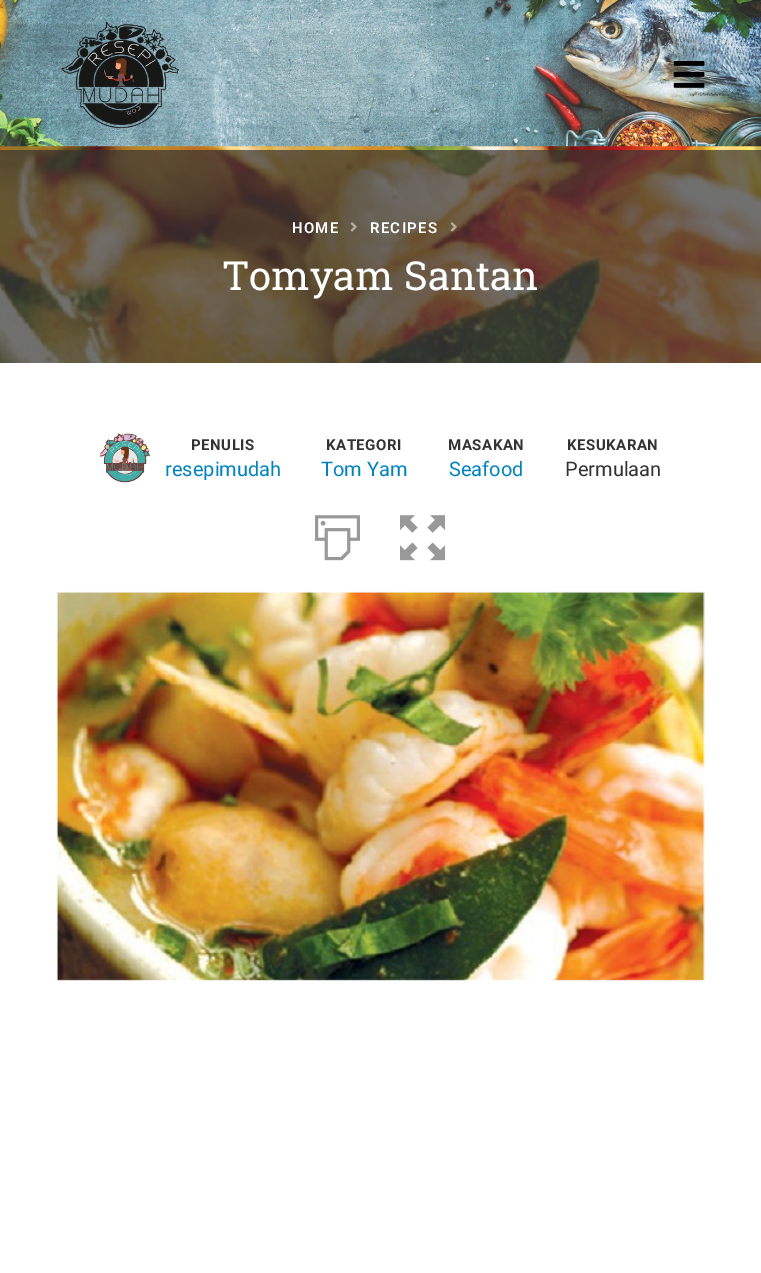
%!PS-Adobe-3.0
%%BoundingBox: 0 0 761 1273
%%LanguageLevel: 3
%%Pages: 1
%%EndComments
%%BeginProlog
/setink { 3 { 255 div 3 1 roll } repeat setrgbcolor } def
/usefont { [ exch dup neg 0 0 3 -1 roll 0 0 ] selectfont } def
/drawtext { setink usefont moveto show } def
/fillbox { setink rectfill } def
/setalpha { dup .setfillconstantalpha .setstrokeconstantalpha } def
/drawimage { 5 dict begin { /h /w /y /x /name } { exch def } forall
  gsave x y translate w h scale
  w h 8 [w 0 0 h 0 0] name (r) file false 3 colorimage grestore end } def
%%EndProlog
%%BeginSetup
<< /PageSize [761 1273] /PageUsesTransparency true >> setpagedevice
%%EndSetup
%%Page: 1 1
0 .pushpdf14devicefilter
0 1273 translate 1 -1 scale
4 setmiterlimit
0 0 761 1273 255 255 255 fillbox
(assets/img1.rgb) 0 146 761 217 drawimage
(assets/img2.rgb) 0 0 761 147 drawimage
(assets/img3.rgb) 61 22 118 107 drawimage
(assets/img4.rgb) 673 61 32 27 drawimage
0.7 setalpha
0 150 761 213 51 51 51 fillbox
/Roboto-SemiBold 15 usefont
1 setalpha
255 255 255 setink
292 233 moveto 1.25 0 (HOME) ashow
(assets/img5.rgb) 350 222 7 10 drawimage
370 233 moveto 1.25 0 (RECIPES) ashow
(assets/img6.rgb) 450 222 7 10 drawimage
(Tomyam Santan) 222 290 /RobotoSlab-Regular 40 255 255 255 drawtext
(assets/img7.rgb) 100 433 50 50 drawimage
/Roboto-Bold 15 usefont
51 51 51 setink
191 450 moveto 0.5 0 (PENULIS) ashow
(resepimudah) 165 476 /Roboto-Regular 20 0 131 190 drawtext
/Roboto-Bold 15 usefont
51 51 51 setink
326 450 moveto 0.5 0 (KATEGORI) ashow
(Tom Yam) 321 476 /Roboto-Regular 20 0 131 190 drawtext
/Roboto-Bold 15 usefont
51 51 51 setink
448 450 moveto 0.5 0 (MASAKAN) ashow
(Seafood) 449 476 /Roboto-Regular 20 0 131 190 drawtext
/Roboto-Bold 15 usefont
51 51 51 setink
567 450 moveto 0.5 0 (KESUKARAN) ashow
(Permulaan) 565 476 /Roboto-Regular 20 51 51 51 drawtext
(assets/img8.rgb) 315 515 45 46 drawimage
(assets/img9.rgb) 400 515 45 46 drawimage
(assets/img10.rgb) 56 591 649 390 drawimage
.poppdf14devicefilter showpage
%%EOF
